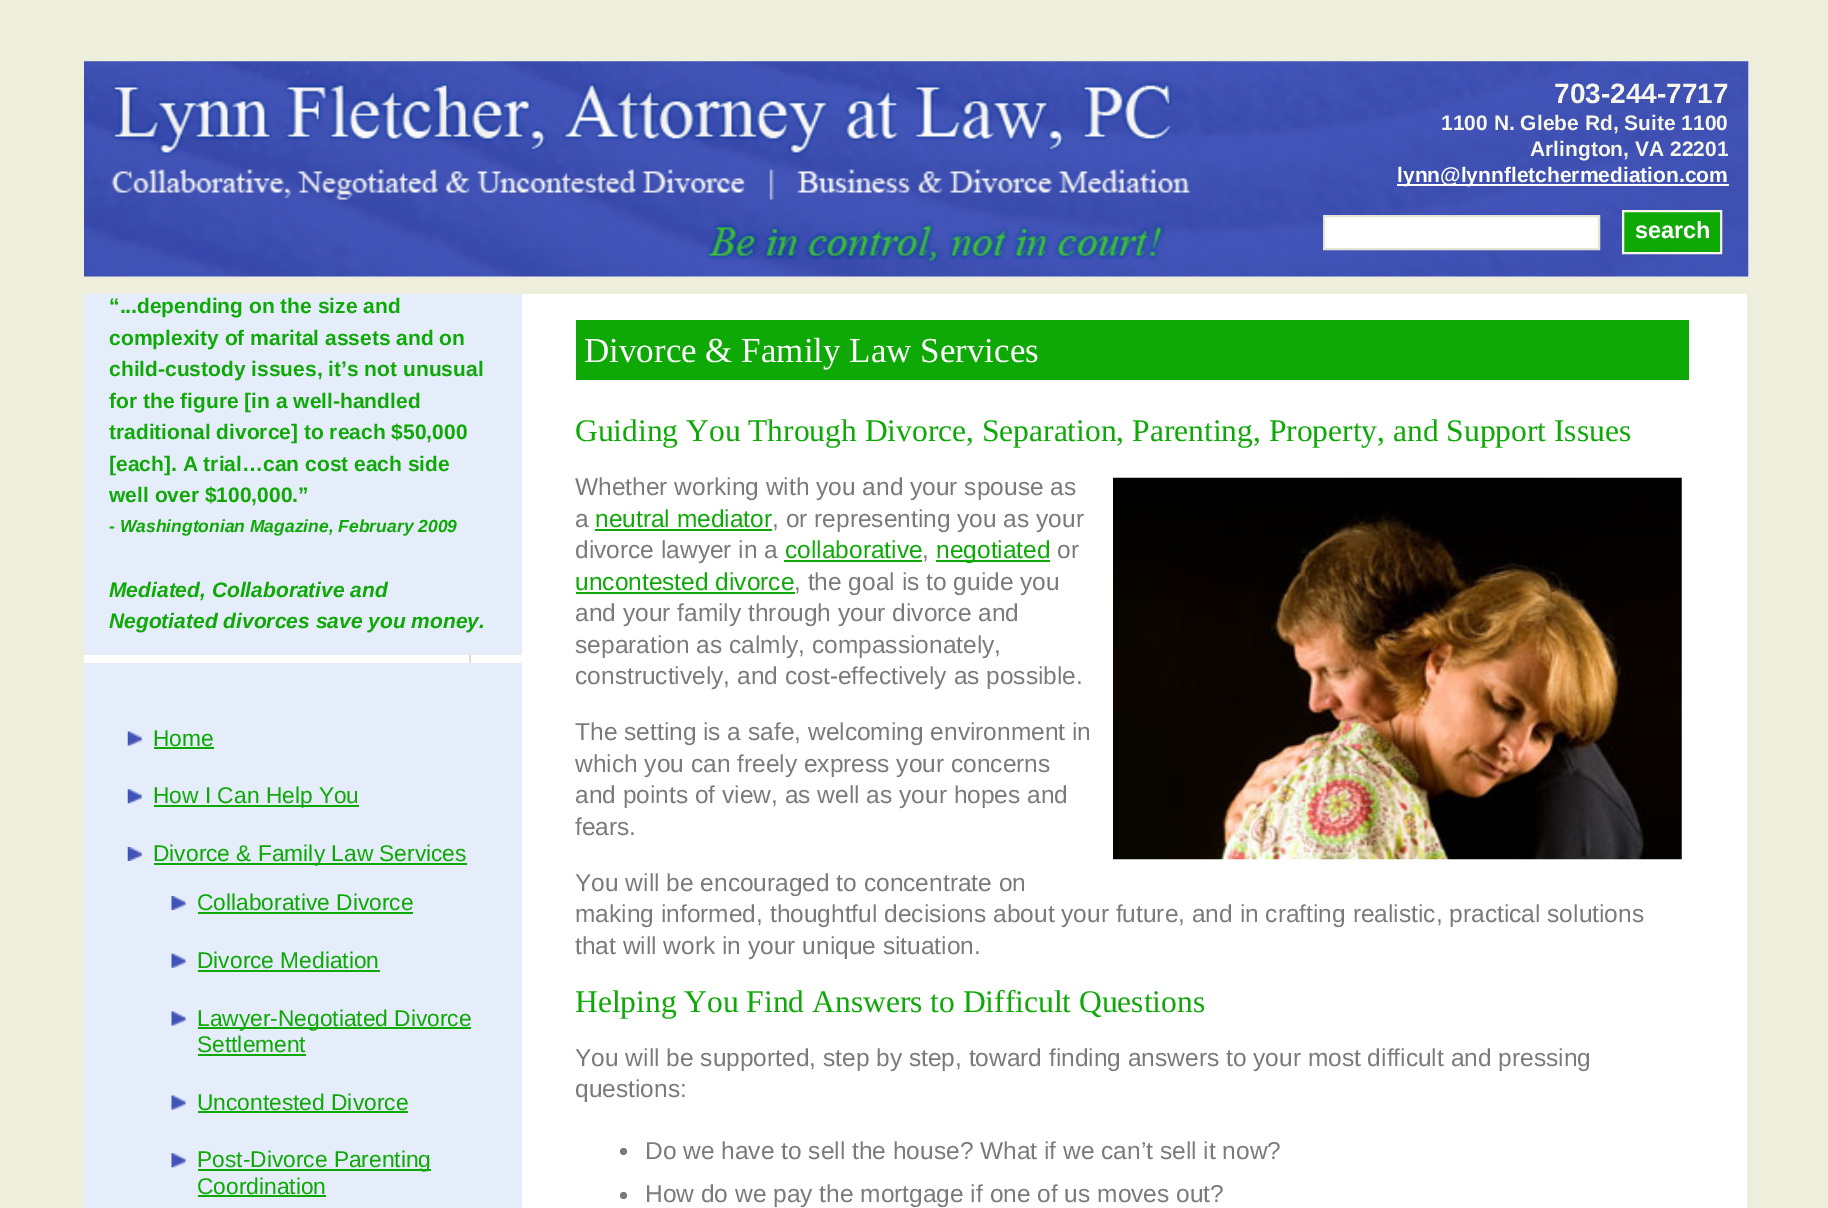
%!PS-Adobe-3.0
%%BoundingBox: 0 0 1828 1208
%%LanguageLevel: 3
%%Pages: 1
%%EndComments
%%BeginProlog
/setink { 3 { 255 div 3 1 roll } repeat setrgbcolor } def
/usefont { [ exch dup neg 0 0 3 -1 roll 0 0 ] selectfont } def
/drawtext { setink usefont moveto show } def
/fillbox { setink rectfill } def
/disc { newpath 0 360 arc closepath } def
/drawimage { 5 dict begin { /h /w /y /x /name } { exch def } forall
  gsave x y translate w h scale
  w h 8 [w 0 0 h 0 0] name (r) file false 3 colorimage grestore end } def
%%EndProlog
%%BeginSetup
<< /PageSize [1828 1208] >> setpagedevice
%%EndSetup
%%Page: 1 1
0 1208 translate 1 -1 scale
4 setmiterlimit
0 0 1828 1208 238 238 221 fillbox
(assets/img1.rgb) 84 61 1665 216 drawimage
(703-244-7717) 1554 103 /LiberationSans-Bold 28 246 246 233 drawtext
(1100 N. Glebe Rd, Suite 1100) 1441 130 /LiberationSans-Bold 21 246 246 233 drawtext
(Arlington, VA 22201) 1530 156 /LiberationSans-Bold 21 246 246 233 drawtext
1397 184 332 2 255 255 253 fillbox
(lynn@lynnfletchermediation.com) 1397 182 /LiberationSans-Bold 21 255 255 255 drawtext
1324 216 moveto 1599 216 lineto 1599 249 lineto 1324 249 lineto closepath gsave fill grestore
229 227 211 setink
2 setlinewidth
stroke
14 169 6 setink
1623 211 moveto 1721 211 lineto 1721 253 lineto 1623 253 lineto closepath gsave fill grestore
246 246 233 setink
stroke
(search) 1635 238 /LiberationSans-Bold 23.5 255 255 255 drawtext
84 294 1663 914 255 255 255 fillbox
469 655 2 8 222 222 202 fillbox
84 294 438 361 229 237 250 fillbox
(“...depending on the size and) 109 313 /LiberationSans-Bold 21 14 169 6 drawtext
(complexity of marital assets and on) 109 345 /LiberationSans-Bold 21 14 169 6 drawtext
(child-custody issues, it’s not unusual) 109 376 /LiberationSans-Bold 21 14 169 6 drawtext
(for the figure [in a well-handled) 109 408 /LiberationSans-Bold 21 14 169 6 drawtext
(traditional divorce] to reach $50,000) 109 439 /LiberationSans-Bold 21 14 169 6 drawtext
([each]. A trial…can cost each side) 109 471 /LiberationSans-Bold 21 14 169 6 drawtext
(well over $100,000.”) 109 502 /LiberationSans-Bold 21 14 169 6 drawtext
(- Washingtonian Magazine, February 2009) 109 532 /LiberationSans-BoldItalic 17.5 14 169 6 drawtext
(Mediated, Collaborative and) 109 597 /LiberationSans-BoldItalic 21 14 169 6 drawtext
(Negotiated divorces save you money.) 109 628 /LiberationSans-BoldItalic 21 14 169 6 drawtext
84 663 438 545 229 237 250 fillbox
(assets/img2.rgb) 127 731 15 15 drawimage
(Home) 153 746 /LiberationSans-Regular 22.75 14 169 6 drawtext
154 747 60 2 14 169 6 fillbox
(assets/img3.rgb) 127 789 15 15 drawimage
154 805 205 2 14 169 6 fillbox
(How I Can Help You) 153 803 /LiberationSans-Regular 22.75 14 169 6 drawtext
(assets/img4.rgb) 127 847 15 14 drawimage
154 863 313 2 14 169 6 fillbox
(Divorce & Family Law Services) 153 861 /LiberationSans-Regular 22.75 14 169 6 drawtext
(assets/img5.rgb) 171 896 15 14 drawimage
(Collaborative Divorce) 197 910 /LiberationSans-Regular 22.75 14 169 6 drawtext
198 912 215 2 14 169 6 fillbox
(assets/img6.rgb) 171 953 15 15 drawimage
(Divorce Mediation) 197 968 /LiberationSans-Regular 22.75 14 169 6 drawtext
198 970 182 2 14 169 6 fillbox
(assets/img7.rgb) 171 1011 15 15 drawimage
198 1027 273 2 14 169 6 fillbox
(Lawyer-Negotiated Divorce) 197 1026 /LiberationSans-Regular 22.75 14 169 6 drawtext
(Settlement) 197 1052 /LiberationSans-Regular 22.75 14 169 6 drawtext
198 1054 108 2 14 169 6 fillbox
(assets/img7.rgb) 171 1095 15 15 drawimage
(Uncontested Divorce) 197 1110 /LiberationSans-Regular 22.75 14 169 6 drawtext
198 1111 210 2 14 169 6 fillbox
(assets/img8.rgb) 171 1153 15 15 drawimage
198 1169 233 2 14 169 6 fillbox
(Post-Divorce Parenting) 197 1167 /LiberationSans-Regular 22.75 14 169 6 drawtext
(Coordination) 197 1194 /LiberationSans-Regular 22.75 14 169 6 drawtext
198 1195 128 2 14 169 6 fillbox
576 320 1113 60 14 169 6 fillbox
(Divorce & Family Law Services) 584 362 /LiberationSerif-Regular 35 255 255 255 drawtext
(Guiding You Through Divorce, Separation, Parenting, Property, and Support Issues) 575 441 /LiberationSerif-Regular 31.5 14 169 6 drawtext
(Whether working with you and your spouse as) 575 495 /LiberationSans-Regular 24.5 123 122 122 drawtext
(assets/img9.rgb) 1113 477 569 383 drawimage
(a) 575 527 /LiberationSans-Regular 24.5 123 122 122 drawtext
(neutral mediator) 595 527 /LiberationSans-Regular 24.5 14 169 6 drawtext
595 529 177 2 14 169 6 fillbox
(, or representing you as your) 772 527 /LiberationSans-Regular 24.5 123 122 122 drawtext
(divorce lawyer in a) 575 558 /LiberationSans-Regular 24.5 123 122 122 drawtext
(collaborative) 785 558 /LiberationSans-Regular 24.5 14 169 6 drawtext
784 560 138 2 14 169 6 fillbox
(,) 922 558 /LiberationSans-Regular 24.5 123 122 122 drawtext
936 560 114 2 14 169 6 fillbox
(negotiated) 936 558 /LiberationSans-Regular 24.5 14 169 6 drawtext
(or) 1057 558 /LiberationSans-Regular 24.5 123 122 122 drawtext
(uncontested divorce) 575 590 /LiberationSans-Regular 24.5 14 169 6 drawtext
576 592 219 2 14 169 6 fillbox
(, the goal is to guide you) 794 590 /LiberationSans-Regular 24.5 123 122 122 drawtext
(and your family through your divorce and) 575 621 /LiberationSans-Regular 24.5 123 122 122 drawtext
(separation as calmly, compassionately,) 575 653 /LiberationSans-Regular 24.5 123 122 122 drawtext
(constructively, and cost-effectively as possible.) 575 684 /LiberationSans-Regular 24.5 123 122 122 drawtext
(The setting is a safe, welcoming environment in) 575 740 /LiberationSans-Regular 24.5 123 122 122 drawtext
(which you can freely express your concerns) 575 772 /LiberationSans-Regular 24.5 123 122 122 drawtext
(and points of view, as well as your hopes and) 575 803 /LiberationSans-Regular 24.5 123 122 122 drawtext
(fears.) 575 835 /LiberationSans-Regular 24.5 123 122 122 drawtext
(You will be encouraged to concentrate on) 575 891 /LiberationSans-Regular 24.5 123 122 122 drawtext
(making informed, thoughtful decisions about your future, and in crafting realistic, practical solutions) 575 922 /LiberationSans-Regular 24.5 123 122 122 drawtext
(that will work in your unique situation.) 575 954 /LiberationSans-Regular 24.5 123 122 122 drawtext
(Helping You Find Answers to Difficult Questions) 575 1012 /LiberationSerif-Regular 31.5 14 169 6 drawtext
(You will be supported, step by step, toward finding answers to your most difficult and pressing) 575 1066 /LiberationSans-Regular 24.5 123 122 122 drawtext
(questions:) 575 1097 /LiberationSans-Regular 24.5 123 122 122 drawtext
623.5 1151.5 3.5 disc fill
(Do we have to sell the house? What if we can’t sell it now?) 645 1159 /LiberationSans-Regular 24.5 123 122 122 drawtext
623.5 1195.5 3.5 disc fill
(How do we pay the mortgage if one of us moves out?) 645 1202 /LiberationSans-Regular 24.5 123 122 122 drawtext
showpage
%%EOF
